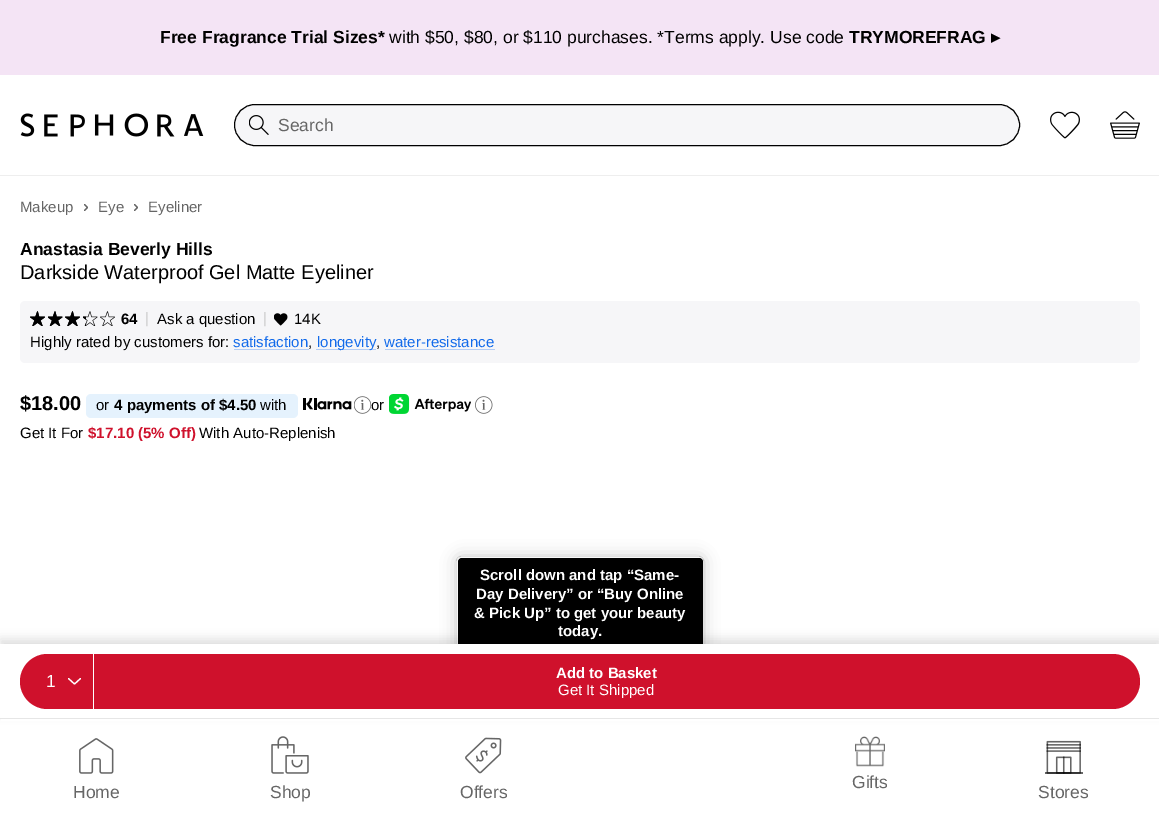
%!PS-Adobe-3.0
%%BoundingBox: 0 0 1159 826
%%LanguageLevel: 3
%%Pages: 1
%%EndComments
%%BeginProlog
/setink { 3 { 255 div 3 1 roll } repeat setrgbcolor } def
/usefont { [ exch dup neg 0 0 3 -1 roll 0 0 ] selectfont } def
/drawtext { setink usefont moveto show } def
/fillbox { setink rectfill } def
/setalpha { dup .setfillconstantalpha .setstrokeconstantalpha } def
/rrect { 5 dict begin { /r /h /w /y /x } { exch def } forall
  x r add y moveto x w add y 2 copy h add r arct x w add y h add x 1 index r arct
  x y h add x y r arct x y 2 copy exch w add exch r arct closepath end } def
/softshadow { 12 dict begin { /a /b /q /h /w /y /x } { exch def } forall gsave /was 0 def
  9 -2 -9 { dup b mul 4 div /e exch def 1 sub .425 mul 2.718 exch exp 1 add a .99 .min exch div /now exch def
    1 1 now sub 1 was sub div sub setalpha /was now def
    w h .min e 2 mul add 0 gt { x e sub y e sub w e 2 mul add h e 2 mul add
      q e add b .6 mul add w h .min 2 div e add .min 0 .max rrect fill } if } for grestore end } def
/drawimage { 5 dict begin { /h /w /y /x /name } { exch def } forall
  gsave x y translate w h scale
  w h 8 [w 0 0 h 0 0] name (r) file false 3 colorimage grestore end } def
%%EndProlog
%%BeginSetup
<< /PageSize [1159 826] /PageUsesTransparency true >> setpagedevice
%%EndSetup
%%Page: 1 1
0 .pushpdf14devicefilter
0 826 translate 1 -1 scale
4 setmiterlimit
0 0 1159 826 255 255 255 fillbox
0 0 1159 75 244 228 245 fillbox
(Free Fragrance Trial Sizes*) 160 43 /LiberationSans-Bold 17.5 0 0 0 drawtext
(with $50, $80, or $110 purchases. *Terms apply. Use code) 389 43 /LiberationSans-Regular 17.5 0 0 0 drawtext
(TRYMOREFRAG) 849 43 /LiberationSans-Bold 17.5 0 0 0 drawtext
(▸) 991 43 /DejaVuSans-Bold 17.5 0 0 0 drawtext
0 175 1159 1 238 238 238 fillbox
(assets/img1.rgb) 20 113 184 24 drawimage
246 246 248 setink
234.5 104.5 785 41 20.5 rrect gsave fill grestore
0 0 0 setink
stroke
(assets/img2.rgb) 249 115 20 20 drawimage
(Search) 278 131 /LiberationSans-Regular 17.5 102 102 102 drawtext
(assets/img3.rgb) 1050 111 30 28 drawimage
(assets/img4.rgb) 1110 111 30 28 drawimage
gsave
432 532 moveto 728 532 lineto 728 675 lineto 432 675 lineto closepath 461 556 moveto 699 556 lineto 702 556 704 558 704 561 curveto 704 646 lineto 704 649 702 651 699 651 curveto 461 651 lineto 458 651 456 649 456 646 curveto 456 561 lineto 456 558 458 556 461 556 curveto closepath eoclip newpath
0 0 0 setink
456 556 248 95 5 7.5 0.2 softshadow
grestore
0 0 0 setink
458 558 245 92 4 rrect fill
0.12 setalpha
456.5 556.5 247 94 4.5 rrect stroke
1 setalpha
0 639 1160 75 0 5 0.12 softshadow
0 718 1159 1 230 230 230 fillbox
1 719 1158 2 255 255 255 fillbox
(assets/img5.rgb) 855 736 30 31 drawimage
(Gifts) 852 788 /LiberationSans-Regular 17.5 102 102 102 drawtext
(assets/img6.rgb) 79 738 35 36 drawimage
(Home) 73 798 /LiberationSans-Regular 17.5 102 102 102 drawtext
(assets/img7.rgb) 271 736 38 38 drawimage
(Shop) 270 798 /LiberationSans-Regular 17.5 102 102 102 drawtext
(assets/img8.rgb) 465 737 37 37 drawimage
(Offers) 460 798 /LiberationSans-Regular 17.5 102 102 102 drawtext
(assets/img9.rgb) 1045 740 38 34 drawimage
(Stores) 1038 798 /LiberationSans-Regular 17.5 102 102 102 drawtext
(Makeup) 20 212 /LiberationSans-Regular 15 102 102 102 drawtext
1.2 setlinewidth
1 setlinecap
1 setlinejoin
84.5 210.5 moveto 87.5 207.5 lineto 84.5 204.5 lineto 134.5 210.5 moveto 137.5 207.5 lineto 134.5 204.5 lineto stroke
(Eye) 98 212 /LiberationSans-Regular 15 102 102 102 drawtext
(Eyeliner) 148 212 /LiberationSans-Regular 15 102 102 102 drawtext
(Anastasia Beverly Hills) 20 255 /LiberationSans-Bold 17.5 0 0 0 drawtext
(Darkside Waterproof Gel Matte Eyeliner) 20 279 /LiberationSans-Regular 20 0 0 0 drawtext
246 246 248 setink
20 301 1120 62 5 rrect fill
(assets/img10.rgb) 30 311 15 15 drawimage
(assets/img11.rgb) 48 311 15 15 drawimage
(assets/img10.rgb) 65 311 15 15 drawimage
(assets/img11.rgb) 83 311 15 15 drawimage
(assets/img10.rgb) 100 311 15 15 drawimage
(assets/img12.rgb) 30 311 15 15 drawimage
(assets/img13.rgb) 48 311 15 15 drawimage
(assets/img12.rgb) 65 311 15 15 drawimage
(assets/img14.rgb) 83 316 3 10 drawimage
(64) 121 324 /LiberationSans-Bold 15 0 0 0 drawtext
(|) 145 323 /LiberationSans-Regular 15 204 204 204 drawtext
(Ask a question) 157 324 /LiberationSans-Regular 15 0 0 0 drawtext
(|) 263 323 /LiberationSans-Regular 15 204 204 204 drawtext
(assets/img15.rgb) 274 313 14 13 drawimage
(14K) 294 324 /LiberationSans-Regular 15 0 0 0 drawtext
(Highly rated by customers for:) 30 347 /LiberationSans-Regular 15 0 0 0 drawtext
(satisfaction) 233 347 /LiberationSans-Regular 15 19 107 234 drawtext
234 349 75 1 178 204 244 fillbox
(,) 308 347 /LiberationSans-Regular 15 0 0 0 drawtext
316 349 60 1 178 204 244 fillbox
(longevity) 317 347 /LiberationSans-Regular 15 19 107 234 drawtext
(,) 376 347 /LiberationSans-Regular 15 0 0 0 drawtext
(water-resistance) 384 347 /LiberationSans-Regular 15 19 107 234 drawtext
385 349 110 1 178 204 244 fillbox
($18.00) 20 410 /LiberationSans-Bold 20 0 0 0 drawtext
229 242 253 setink
86 394 212 24 5 rrect fill
(or) 96 410 /LiberationSans-Regular 15 0 0 0 drawtext
(4 payments of $4.50) 114 410 /LiberationSans-Bold 15 0 0 0 drawtext
(with) 260 410 /LiberationSans-Regular 15 0 0 0 drawtext
(assets/img16.rgb) 303 398 49 12 drawimage
(assets/img17.rgb) 354 396 17 18 drawimage
(or) 371 410 /LiberationSans-Regular 15 0 0 0 drawtext
(assets/img18.rgb) 389 394 82 20 drawimage
(assets/img19.rgb) 475 396 18 18 drawimage
(Get It For) 20 438 /LiberationSans-Regular 15 0 0 0 drawtext
($17.10 \(5% Off\)) 88 438 /LiberationSans-Bold 15 207 17 44 drawtext
(With Auto-Replenish) 199 438 /LiberationSans-Regular 15 0 0 0 drawtext
(Scroll down and tap “Same-) 480 580 /LiberationSans-Bold 15 255 255 255 drawtext
(Day Delivery” or “Buy Online) 476 599 /LiberationSans-Bold 15 255 255 255 drawtext
(& Pick Up” to get your beauty) 474 618 /LiberationSans-Bold 15 255 255 255 drawtext
(today.) 558 636 /LiberationSans-Bold 15 255 255 255 drawtext
0 644 1159 74 255 255 255 fillbox
207 17 44 setink
20 654 1120 55 27.5 rrect fill
93 654 1 55 255 255 255 fillbox
(1) 46 687 /LiberationSans-Regular 17.5 255 255 255 drawtext
68.5 678.5 moveto 74.5 684 lineto 80.5 678.5 lineto stroke
(Add to Basket) 556 678 /LiberationSans-Bold 15 255 255 255 drawtext
(Get It Shipped) 558 695 /LiberationSans-Regular 15 255 255 255 drawtext
.poppdf14devicefilter showpage
%%EOF
